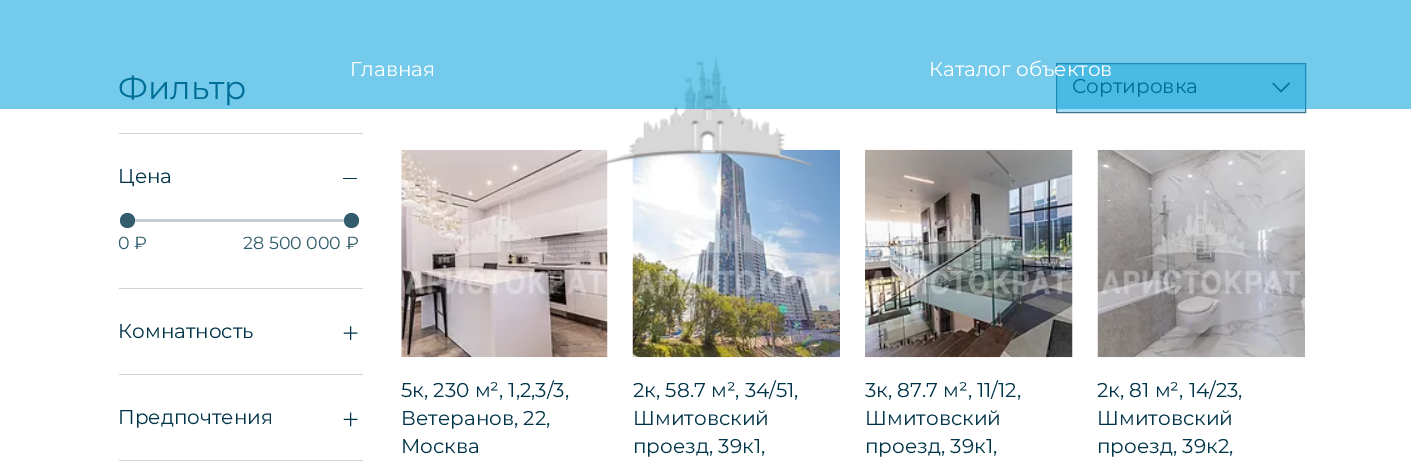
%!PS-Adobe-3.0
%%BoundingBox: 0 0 1411 464
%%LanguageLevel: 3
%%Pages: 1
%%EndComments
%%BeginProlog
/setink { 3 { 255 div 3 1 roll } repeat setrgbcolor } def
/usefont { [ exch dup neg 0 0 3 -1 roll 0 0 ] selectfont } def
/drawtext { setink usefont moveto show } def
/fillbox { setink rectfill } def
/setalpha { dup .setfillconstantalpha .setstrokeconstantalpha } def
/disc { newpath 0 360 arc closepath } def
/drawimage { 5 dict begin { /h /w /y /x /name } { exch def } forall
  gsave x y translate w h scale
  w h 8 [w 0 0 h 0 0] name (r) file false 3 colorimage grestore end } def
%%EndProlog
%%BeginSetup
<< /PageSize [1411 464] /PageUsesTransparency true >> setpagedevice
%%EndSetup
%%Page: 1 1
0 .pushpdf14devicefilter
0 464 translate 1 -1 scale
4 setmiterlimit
0 0 1411 464 255 255 255 fillbox
(assets/img4.rgb) 401 149 207 209 drawimage
(assets/img5.rgb) 632 149 208 209 drawimage
(assets/img1.rgb) 593 57 222 111 drawimage
(Фильтр) 118 99 /Montserrat-Regular 32.5 0 52 72 drawtext
161 220 242 setink
1056.5 63.5 moveto 1305.5 63.5 lineto 1305.5 112.5 lineto 1056.5 112.5 lineto closepath gsave fill grestore
64 119 140 setink
stroke
(Сортировка) 1072 93 /Montserrat-Regular 20 0 52 72 drawtext
1289 82.5 moveto 1290 83.5 lineto 1281 92.5 lineto 1272.5 83.5 lineto 1273 82.5 lineto 1281 90.5 lineto closepath eofill
0.55 setalpha
0 0 1411 109 0 158 216 fillbox
1 setalpha
(Главная) 350 76 /Montserrat-Regular 20 255 255 255 drawtext
(Каталог объектов) 929 76 /Montserrat-Regular 20 255 255 255 drawtext
119 133 244 1 204 214 218 fillbox
119 288 244 1 204 214 218 fillbox
(Цена) 118 183 /Montserrat-Regular 20 0 52 72 drawtext
343 178 14 1 0 52 72 fillbox
126 219 224 3 194 206 211 fillbox
51 93 109 setink
127.5 220.5 7.5 disc fill
351.5 220.5 7.5 disc fill
(0 ₽) 118 249 /Montserrat-Regular 17.5 51 93 109 drawtext
(28 500 000 ₽) 243 249 /Montserrat-Regular 17.5 51 93 109 drawtext
119 374 244 1 204 214 218 fillbox
(Комнатность) 118 338 /Montserrat-Regular 20 0 52 72 drawtext
(assets/img2.rgb) 343 326 15 14 drawimage
119 460 244 1 204 214 218 fillbox
(Предпочтения) 118 424 /Montserrat-Regular 20 0 52 72 drawtext
(assets/img3.rgb) 343 412 15 15 drawimage
(5к, 230 м², 1,2,3/3,) 401 397 /Montserrat-Regular 20 0 52 72 drawtext
(Ветеранов, 22,) 401 425 /Montserrat-Regular 20 0 52 72 drawtext
(Москва) 401 453 /Montserrat-Regular 20 0 52 72 drawtext
(2к, 58.7 м², 34/51,) 633 397 /Montserrat-Regular 20 0 52 72 drawtext
(Шмитовский) 633 425 /Montserrat-Regular 20 0 52 72 drawtext
(проезд, 39к1,) 633 453 /Montserrat-Regular 20 0 52 72 drawtext
(assets/img6.rgb) 865 149 208 209 drawimage
(3к, 87.7 м², 11/12,) 865 397 /Montserrat-Regular 20 0 52 72 drawtext
(Шмитовский) 865 425 /Montserrat-Regular 20 0 52 72 drawtext
(проезд, 39к1,) 865 453 /Montserrat-Regular 20 0 52 72 drawtext
(assets/img7.rgb) 1097 149 208 209 drawimage
(2к, 81 м², 14/23,) 1097 397 /Montserrat-Regular 20 0 52 72 drawtext
(Шмитовский) 1097 425 /Montserrat-Regular 20 0 52 72 drawtext
(проезд, 39к2,) 1097 453 /Montserrat-Regular 20 0 52 72 drawtext
.poppdf14devicefilter showpage
%%EOF
